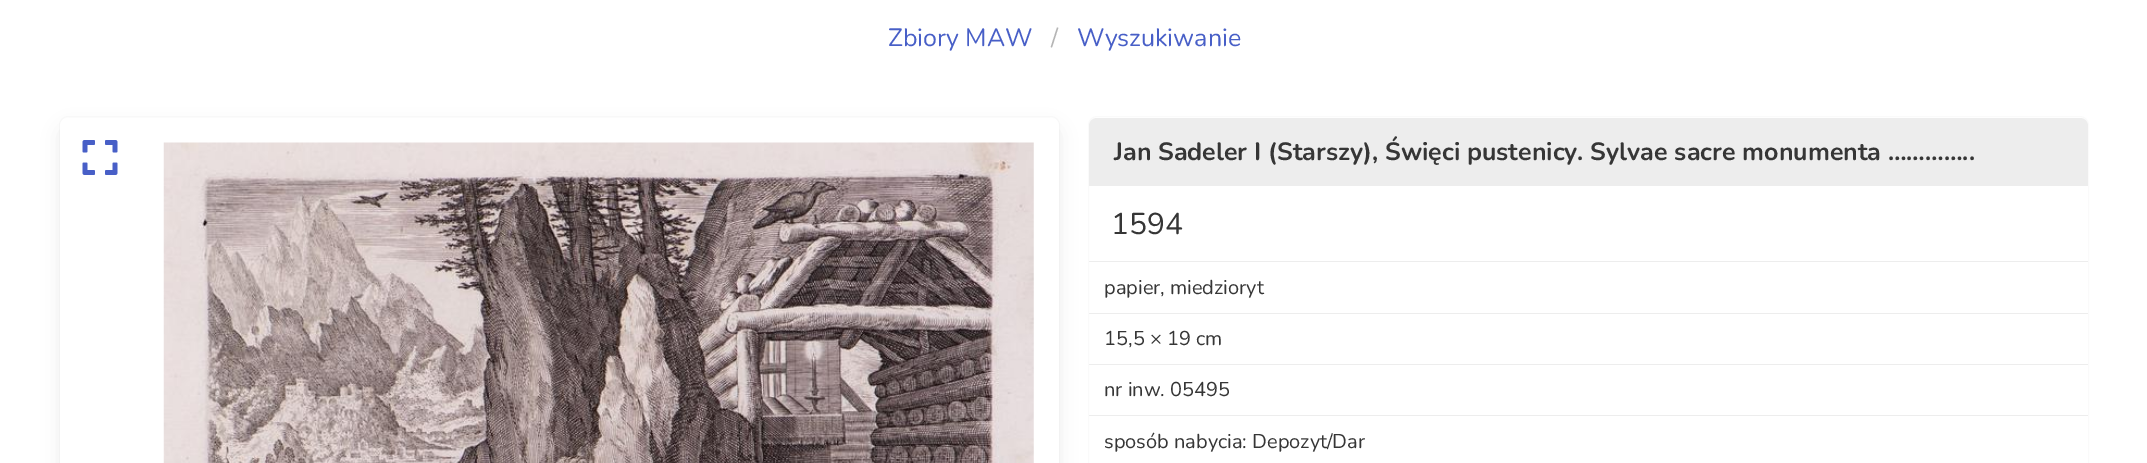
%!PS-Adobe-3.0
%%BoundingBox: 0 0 2147 463
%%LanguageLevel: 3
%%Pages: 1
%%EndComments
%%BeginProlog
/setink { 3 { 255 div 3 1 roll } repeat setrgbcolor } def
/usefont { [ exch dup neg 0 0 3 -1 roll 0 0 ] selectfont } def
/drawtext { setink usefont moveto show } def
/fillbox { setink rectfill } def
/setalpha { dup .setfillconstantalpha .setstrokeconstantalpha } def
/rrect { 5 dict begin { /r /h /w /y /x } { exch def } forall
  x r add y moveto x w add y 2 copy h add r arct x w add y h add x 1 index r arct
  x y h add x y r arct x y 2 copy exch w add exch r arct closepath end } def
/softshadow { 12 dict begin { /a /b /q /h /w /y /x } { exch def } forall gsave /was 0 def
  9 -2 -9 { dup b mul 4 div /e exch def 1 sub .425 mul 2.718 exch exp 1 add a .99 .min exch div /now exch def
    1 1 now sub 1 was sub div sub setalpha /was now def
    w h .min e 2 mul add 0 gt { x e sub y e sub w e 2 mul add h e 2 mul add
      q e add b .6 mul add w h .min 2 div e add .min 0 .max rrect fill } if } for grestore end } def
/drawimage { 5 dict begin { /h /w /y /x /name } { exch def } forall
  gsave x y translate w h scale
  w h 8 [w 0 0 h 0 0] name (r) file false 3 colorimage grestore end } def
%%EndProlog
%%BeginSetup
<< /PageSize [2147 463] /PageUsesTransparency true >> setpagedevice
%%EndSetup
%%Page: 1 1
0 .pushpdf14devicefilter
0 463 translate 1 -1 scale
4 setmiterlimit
0 0 2147 463 255 255 255 fillbox
(Zbiory MAW) 888 46 /Nunito-Regular 25 72 95 199 drawtext
(/) 1051 46 /Nunito-Regular 25 181 181 181 drawtext
(Wyszukiwanie) 1077 46 /Nunito-Regular 25 72 95 199 drawtext
250 250 250 setink
59.5 116.5 1000 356 8.5 rrect stroke
10 10 10 setink
63 130 993 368 5 10 0.1 softshadow
255 255 255 setink
60 118 999 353 8 rrect fill
(assets/img1.rgb) 82 140 36 35 drawimage
(assets/img2.rgb) 163 142 871 321 drawimage
250 250 250 setink
1088.5 116.5 1000 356 8.5 rrect stroke
237 237 237 setink
1097 118 moveto 2080 118 lineto 2084.5 118 2088 121.5 2088 126 curveto 2088 186 lineto 1089 186 lineto 1089 126 lineto 1089 121.5 1092.5 118 1097 118 curveto closepath fill
(Jan Sadeler I \(Starszy\), Święci pustenicy. Sylvae sacre monumenta …………..) 1114 160 /Nunito-Bold 25 54 54 54 drawtext
1089 261 999 1 237 237 237 fillbox
(1594) 1111 234 /Nunito-Regular 30 54 54 54 drawtext
1089 313 999 1 237 237 237 fillbox
(papier, miedzioryt) 1104 294 /Nunito-Regular 20 54 54 54 drawtext
1089 364 999 1 237 237 237 fillbox
(15,5 × 19 cm) 1104 345 /Nunito-Regular 20 54 54 54 drawtext
1089 415 999 1 237 237 237 fillbox
(nr inw. 05495) 1104 396 /Nunito-Regular 20 54 54 54 drawtext
(sposób nabycia: Depozyt/Dar) 1104 448 /Nunito-Regular 20 54 54 54 drawtext
.poppdf14devicefilter showpage
%%EOF
